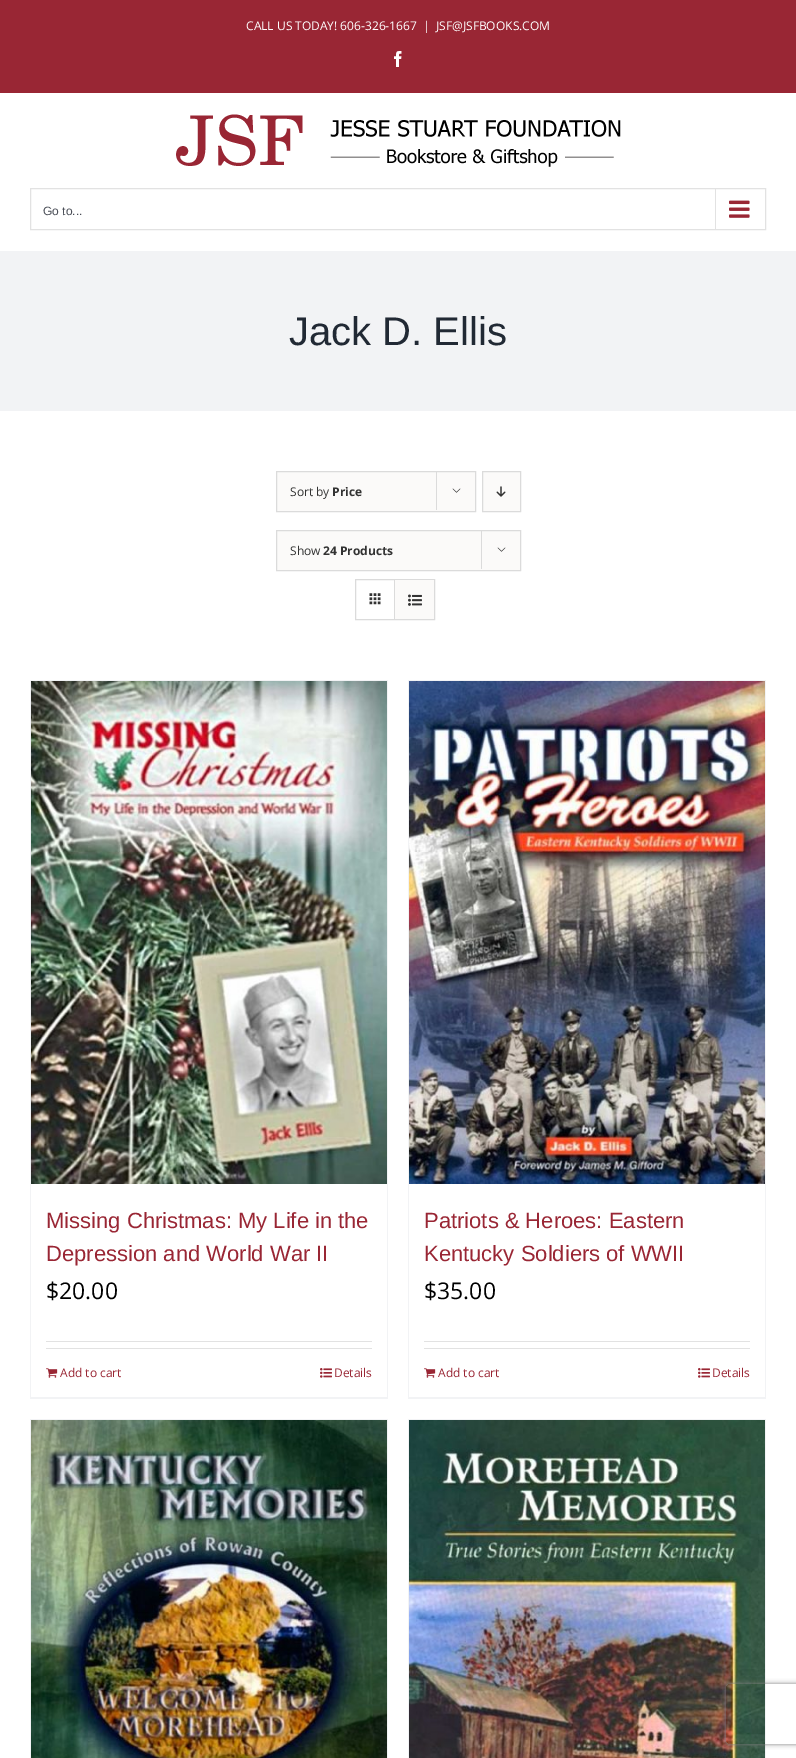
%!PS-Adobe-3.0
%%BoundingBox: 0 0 796 1758
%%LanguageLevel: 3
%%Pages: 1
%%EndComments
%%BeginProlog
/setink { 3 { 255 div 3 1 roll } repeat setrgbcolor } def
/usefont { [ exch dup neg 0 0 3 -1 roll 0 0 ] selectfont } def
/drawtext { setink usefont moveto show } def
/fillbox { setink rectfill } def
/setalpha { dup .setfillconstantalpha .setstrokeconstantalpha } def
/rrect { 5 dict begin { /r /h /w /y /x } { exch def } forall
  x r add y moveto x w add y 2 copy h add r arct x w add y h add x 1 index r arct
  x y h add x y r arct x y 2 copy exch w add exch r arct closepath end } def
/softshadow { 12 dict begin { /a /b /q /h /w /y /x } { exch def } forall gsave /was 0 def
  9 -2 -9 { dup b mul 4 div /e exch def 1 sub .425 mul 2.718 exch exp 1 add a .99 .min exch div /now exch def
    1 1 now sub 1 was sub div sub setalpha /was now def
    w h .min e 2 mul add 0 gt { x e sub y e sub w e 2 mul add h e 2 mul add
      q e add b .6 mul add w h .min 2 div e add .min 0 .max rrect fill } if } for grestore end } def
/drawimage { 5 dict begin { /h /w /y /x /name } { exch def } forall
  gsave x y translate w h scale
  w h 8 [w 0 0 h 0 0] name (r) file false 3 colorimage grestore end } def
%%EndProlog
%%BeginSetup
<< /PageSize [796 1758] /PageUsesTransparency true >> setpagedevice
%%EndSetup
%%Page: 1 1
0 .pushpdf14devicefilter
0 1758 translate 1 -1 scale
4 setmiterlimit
0 0 796 1758 255 255 255 fillbox
0 0 796 93 153 38 52 fillbox
(CALL US TODAY! 606-326-1667) 246 30 /OpenSans-Regular 12 255 255 255 drawtext
(|) 423 30 /OpenSans-Regular 12 255 255 255 drawtext
(JSF@JSFBOOKS.COM) 436 30 /OpenSans-Regular 12 255 255 255 drawtext
(assets/img1.rgb) 394 51 8 16 drawimage
(assets/img2.rgb) 176 114 445 53 drawimage
226 226 226 setink
30.5 188.5 735 41 rectstroke
(Go to...) 43 215 /LiberationSans-Regular 12 74 78 87 drawtext
715 189 1 40 226 226 226 fillbox
(assets/img3.rgb) 729 200 21 18 drawimage
0 251 796 160 242 243 245 fillbox
(Jack D. Ellis) 289 345 /LiberationSans-Regular 40 33 41 52 drawtext
251 250 249 setink
276.5 471.5 moveto 475.5 471.5 lineto 475.5 511.5 lineto 276.5 511.5 lineto closepath gsave fill grestore
219 219 219 setink
stroke
(Sort by) 290 496 /OpenSans-Regular 12 51 51 51 drawtext
(Price) 332 496 /OpenSans-Bold 12 51 51 51 drawtext
436 471 1 39 219 219 219 fillbox
(assets/img4.rgb) 452 488 9 5 drawimage
251 250 249 setink
482.5 471.5 moveto 520.5 471.5 lineto 520.5 511.5 lineto 482.5 511.5 lineto closepath gsave fill grestore
219 219 219 setink
stroke
(assets/img5.rgb) 496 486 10 11 drawimage
251 250 249 setink
276.5 530.5 moveto 520.5 530.5 lineto 520.5 570.5 lineto 276.5 570.5 lineto closepath gsave fill grestore
219 219 219 setink
stroke
(Show) 290 555 /OpenSans-Regular 12 51 51 51 drawtext
(24 Products) 323 555 /OpenSans-Bold 12 51 51 51 drawtext
481 530 1 39 219 219 219 fillbox
(assets/img4.rgb) 497 547 9 5 drawimage
355.5 579.5 79 40 rectstroke
394 580 1 39 219 219 219 fillbox
(assets/img6.rgb) 369 593 12 12 drawimage
395 580 39 39 251 250 249 fillbox
(assets/img7.rgb) 408 594 14 12 drawimage
30 680 358 1 242 243 245 fillbox
387 680 1 719 242 243 245 fillbox
30 1397 358 2 242 243 245 fillbox
30 680 1 719 242 243 245 fillbox
(assets/img8.rgb) 31 681 356 503 drawimage
(Missing Christmas: My Life in the) 46 1228 /LiberationSans-Regular 22 153 38 52 drawtext
(Depression and World War II) 46 1261 /LiberationSans-Regular 22 153 38 52 drawtext
($20.00) 46 1299 /OpenSans-Regular 23 0 0 0 drawtext
46 1341 326 1 226 226 226 fillbox
46 1348 326 1 226 226 226 fillbox
(assets/img9.rgb) 46 1368 12 10 drawimage
(Add to cart) 60 1377 /OpenSans-Regular 12 153 38 52 drawtext
(assets/img10.rgb) 320 1368 12 10 drawimage
(Details) 334 1377 /OpenSans-Regular 12 153 38 52 drawtext
408 680 358 1 242 243 245 fillbox
765 680 1 719 242 243 245 fillbox
408 1397 358 2 242 243 245 fillbox
408 680 1 719 242 243 245 fillbox
(assets/img11.rgb) 409 681 356 503 drawimage
(Patriots & Heroes: Eastern) 424 1228 /LiberationSans-Regular 22 153 38 52 drawtext
(Kentucky Soldiers of WWII) 424 1261 /LiberationSans-Regular 22 153 38 52 drawtext
($35.00) 424 1299 /OpenSans-Regular 23 0 0 0 drawtext
424 1341 326 1 226 226 226 fillbox
424 1348 326 1 226 226 226 fillbox
(assets/img9.rgb) 424 1368 12 10 drawimage
(Add to cart) 438 1377 /OpenSans-Regular 12 153 38 52 drawtext
(assets/img10.rgb) 698 1368 12 10 drawimage
(Details) 712 1377 /OpenSans-Regular 12 153 38 52 drawtext
30 1419 358 1 242 243 245 fillbox
387 1419 1 339 242 243 245 fillbox
30 1419 1 339 242 243 245 fillbox
(assets/img12.rgb) 31 1420 356 338 drawimage
408 1419 358 1 242 243 245 fillbox
765 1419 1 339 242 243 245 fillbox
408 1419 1 339 242 243 245 fillbox
(assets/img13.rgb) 409 1420 356 338 drawimage
gsave
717 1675 moveto 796 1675 lineto 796 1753 lineto 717 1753 lineto closepath 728 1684 moveto 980 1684 lineto 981 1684 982 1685 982 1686 curveto 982 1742 lineto 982 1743 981 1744 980 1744 curveto 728 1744 lineto 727 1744 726 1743 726 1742 curveto 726 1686 lineto 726 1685 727 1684 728 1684 curveto closepath eoclip newpath
128 128 128 setink
726 1684 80 60 2 2.5 1 softshadow
grestore
.poppdf14devicefilter showpage
%%EOF
